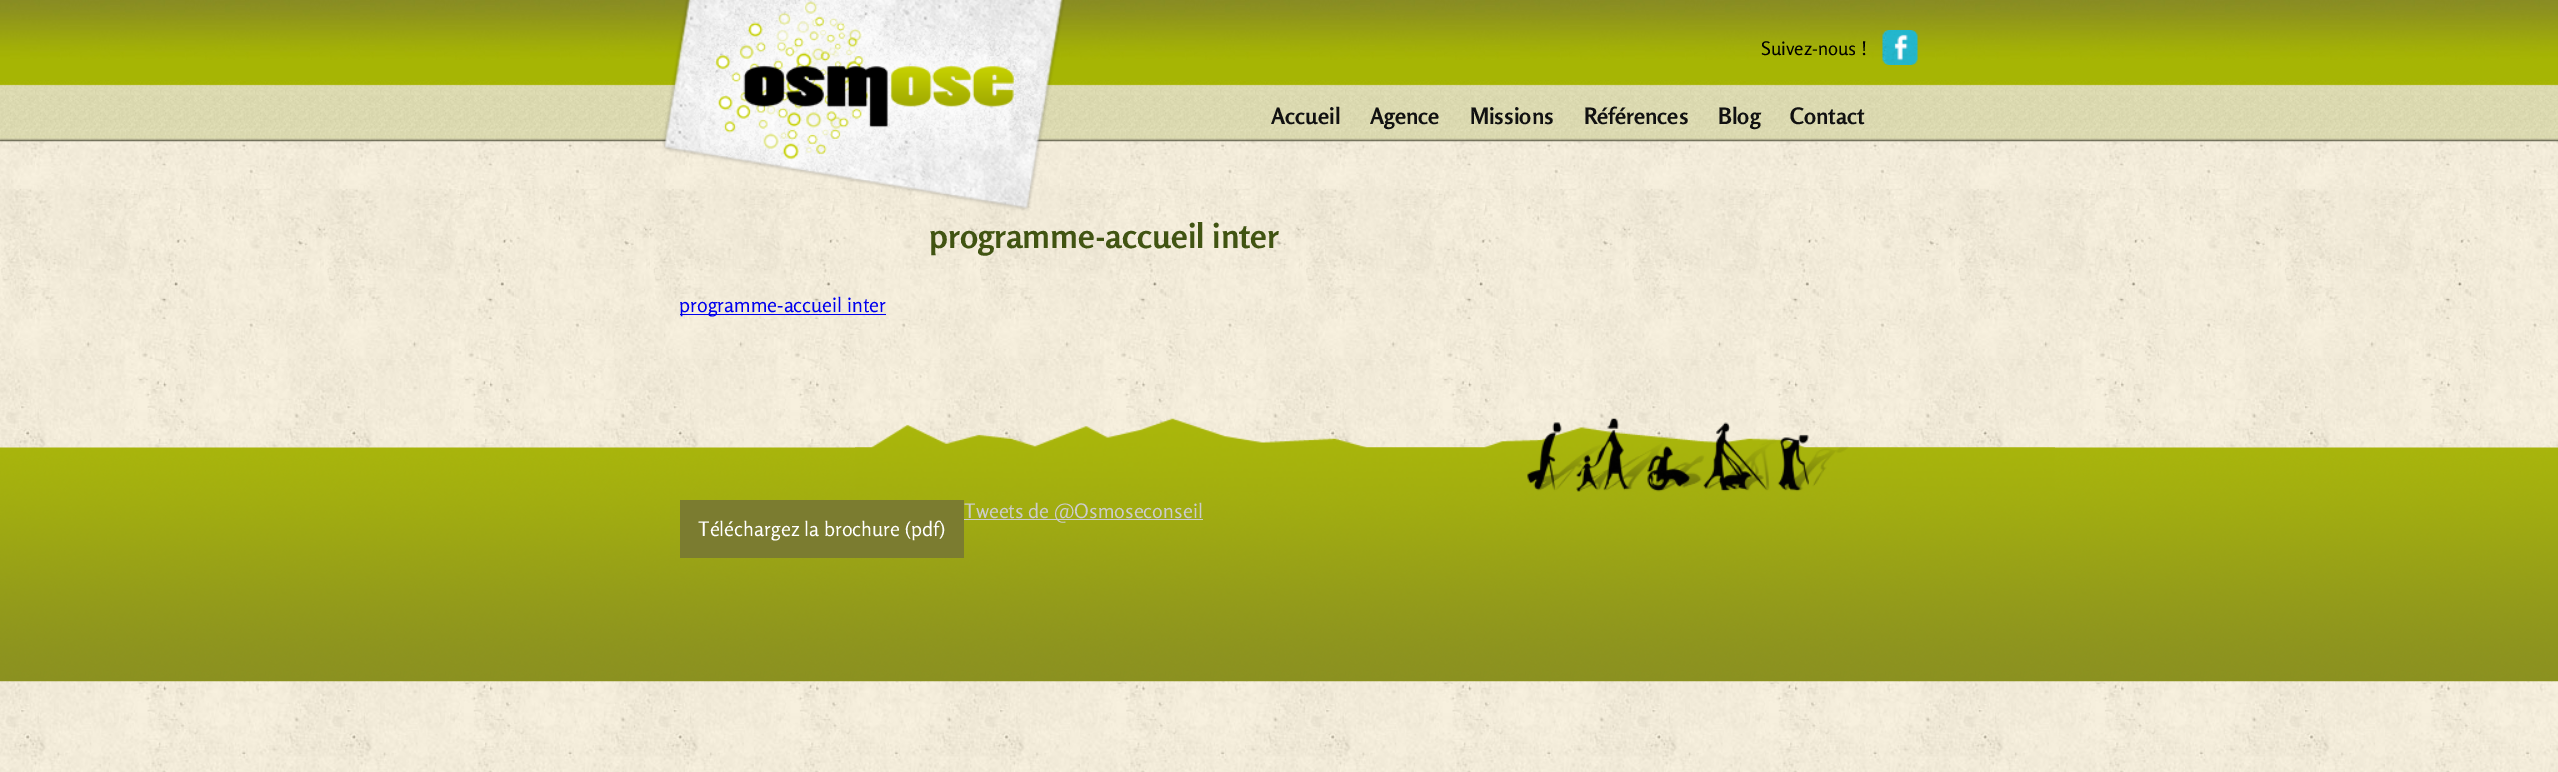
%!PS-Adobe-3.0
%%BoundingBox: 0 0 2558 772
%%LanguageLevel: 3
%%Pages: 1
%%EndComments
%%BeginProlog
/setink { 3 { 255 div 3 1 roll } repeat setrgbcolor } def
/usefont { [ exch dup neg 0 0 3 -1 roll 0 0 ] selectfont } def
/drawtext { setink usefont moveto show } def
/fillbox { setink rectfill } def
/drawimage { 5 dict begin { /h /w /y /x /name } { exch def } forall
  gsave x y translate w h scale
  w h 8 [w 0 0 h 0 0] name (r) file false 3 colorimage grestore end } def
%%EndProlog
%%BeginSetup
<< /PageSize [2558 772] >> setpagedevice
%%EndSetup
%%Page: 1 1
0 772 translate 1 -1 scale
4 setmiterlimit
0 0 2558 772 255 255 255 fillbox
(assets/img1.rgb) 0 141 2558 631 drawimage
(assets/img2.rgb) 0 0 2558 142 drawimage
(assets/img3.rgb) 662 0 403 211 drawimage
(assets/img4.rgb) 1882 30 36 35 drawimage
(Suivez-nous !) 1761 55 /Rosario-Regular 18.75 0 0 0 drawtext
(Accueil) 1271 124 /Rosario-Bold 22.5 17 17 17 drawtext
(Agence) 1370 124 /Rosario-Bold 22.5 17 17 17 drawtext
(Missions) 1470 124 /Rosario-Bold 22.5 17 17 17 drawtext
(Références) 1584 124 /Rosario-Bold 22.5 17 17 17 drawtext
(Blog) 1718 124 /Rosario-Bold 22.5 17 17 17 drawtext
(Contact) 1790 124 /Rosario-Bold 22.5 17 17 17 drawtext
(programme-accueil inter) 929 248 /Rosario-Bold 33.75 65 84 18 drawtext
680 314 206 1 0 0 238 fillbox
(programme-accueil inter) 679 312 /Rosario-Regular 20 0 0 238 drawtext
(assets/img5.rgb) 0 447 2558 235 drawimage
(assets/img6.rgb) 855 418 1200 74 drawimage
964 519 239 1 204 204 204 fillbox
(Tweets de @Osmoseconseil) 964 518 /Rosario-Regular 20 204 204 204 drawtext
680 500 284 58 123 124 48 fillbox
(Téléchargez la brochure \(pdf\)) 698 536 /Rosario-Regular 20 255 255 255 drawtext
showpage
%%EOF
